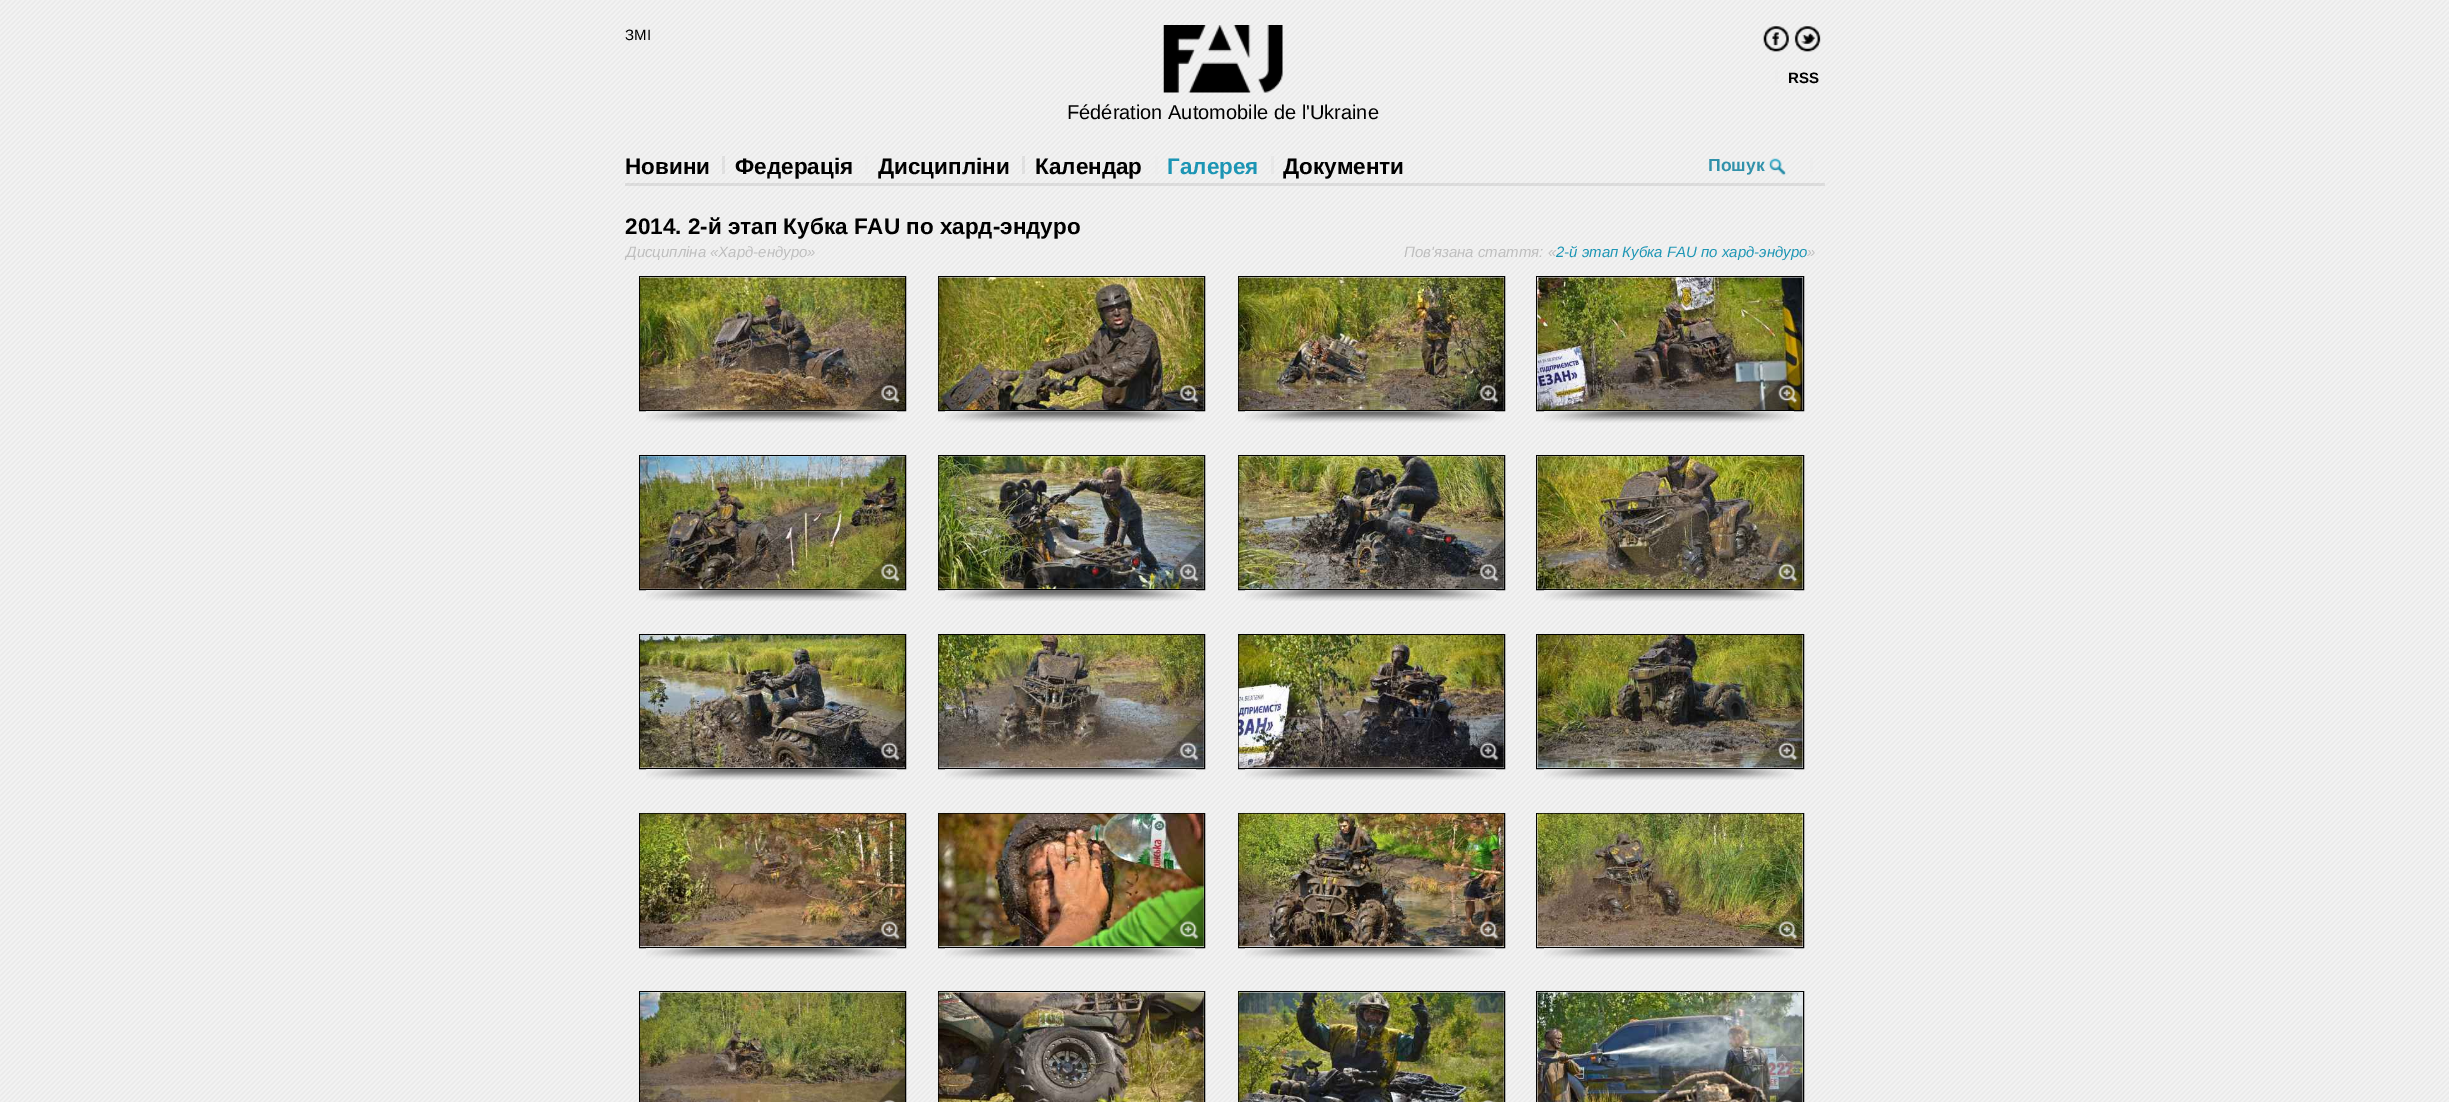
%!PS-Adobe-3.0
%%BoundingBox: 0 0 2449 1102
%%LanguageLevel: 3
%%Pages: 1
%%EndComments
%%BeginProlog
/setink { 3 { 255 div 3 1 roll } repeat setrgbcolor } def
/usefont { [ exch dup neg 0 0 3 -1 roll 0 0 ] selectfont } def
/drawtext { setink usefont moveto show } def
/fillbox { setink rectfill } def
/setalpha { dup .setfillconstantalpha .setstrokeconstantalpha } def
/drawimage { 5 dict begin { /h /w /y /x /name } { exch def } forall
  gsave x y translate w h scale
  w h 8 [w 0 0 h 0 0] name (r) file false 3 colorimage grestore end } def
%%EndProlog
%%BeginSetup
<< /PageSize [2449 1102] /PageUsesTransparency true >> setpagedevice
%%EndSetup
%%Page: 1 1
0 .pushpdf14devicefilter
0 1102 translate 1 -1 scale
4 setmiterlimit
0 0 2449 1102 246 246 246 fillbox
(assets/img1.rgb) 0 0 2449 1102 drawimage
(ЗМІ) 625 40 /LiberationSans-Regular 15 0 0 0 drawtext
(assets/img2.rgb) 1763 26 26 26 drawimage
(assets/img3.rgb) 1794 26 27 26 drawimage
0.34 setalpha
1775 70 3 13 232 232 232 fillbox
1 setalpha
(RSS) 1788 83 /LiberationSans-Bold 15 0 0 0 drawtext
(assets/img4.rgb) 1163 25 120 68 drawimage
(Fédération Automobile de l'Ukraine) 1067 119 /LiberationSans-Regular 20 0 0 0 drawtext
(Новини) 625 174 /LiberationSans-Bold 22.5 0 0 0 drawtext
0.18 setalpha
722 156 3 18 157 157 157 fillbox
1 setalpha
(Федерація) 735 174 /LiberationSans-Bold 22.5 0 0 0 drawtext
0.34 setalpha
865 156 3 18 232 232 232 fillbox
1 setalpha
(Дисципліни) 878 174 /LiberationSans-Bold 22.5 0 0 0 drawtext
0.18 setalpha
1022 156 3 18 157 157 157 fillbox
1 setalpha
(Календар) 1035 174 /LiberationSans-Bold 22.5 0 0 0 drawtext
0.34 setalpha
1155 156 3 18 232 232 232 fillbox
1 setalpha
(Галерея) 1167 174 /LiberationSans-Bold 22.5 28 149 180 drawtext
0.27 setalpha
1271 156 3 18 211 211 211 fillbox
1 setalpha
(Документи) 1283 174 /LiberationSans-Bold 22.5 0 0 0 drawtext
0.11 setalpha
625 183 1200 3 62 62 62 fillbox
1 setalpha
(Пошук) 1708 171 /LiberationSans-Bold 17.5 49 145 170 drawtext
(assets/img5.rgb) 1768 158 18 18 drawimage
0.34 setalpha
1810 158 3 14 232 232 232 fillbox
1 setalpha
(2014. 2-й этап Кубка FAU по хард-эндуро) 625 234 /LiberationSans-Bold 22.5 0 0 0 drawtext
(Дисципліна «Хард-ендуро») 626 257 /LiberationSans-Italic 15 190 190 190 drawtext
(Пов'язана стаття: «) 1404 257 /LiberationSans-Italic 15 190 190 190 drawtext
(2-й этап Кубка FAU по хард-эндуро) 1556 257 /LiberationSans-Italic 15 28 149 180 drawtext
(») 1807 257 /LiberationSans-Italic 15 190 190 190 drawtext
0 0 0 setink
639.5 276.5 266 134 rectstroke
(assets/img6.rgb) 640 277 265 133 drawimage
(assets/img7.rgb) 855 360 50 50 drawimage
(assets/img8.rgb) 646 411 251 12 drawimage
938.5 276.5 266 134 rectstroke
(assets/img9.rgb) 938 277 266 133 drawimage
(assets/img10.rgb) 1154 360 50 50 drawimage
(assets/img11.rgb) 945 411 250 12 drawimage
1238.5 276.5 266 134 rectstroke
(assets/img12.rgb) 1238 277 266 133 drawimage
(assets/img13.rgb) 1454 361 50 49 drawimage
(assets/img14.rgb) 1245 411 250 12 drawimage
1536.5 276.5 267 134 rectstroke
(assets/img15.rgb) 1537 277 266 133 drawimage
(assets/img16.rgb) 1752 360 51 50 drawimage
(assets/img17.rgb) 1544 411 250 12 drawimage
639.5 455.5 266 134 rectstroke
(assets/img18.rgb) 640 456 265 133 drawimage
(assets/img19.rgb) 855 539 50 50 drawimage
(assets/img20.rgb) 646 590 251 11 drawimage
938.5 455.5 266 134 rectstroke
(assets/img21.rgb) 938 456 266 133 drawimage
(assets/img22.rgb) 1153 539 51 50 drawimage
(assets/img23.rgb) 945 590 251 11 drawimage
1238.5 455.5 266 134 rectstroke
(assets/img24.rgb) 1238 456 266 133 drawimage
(assets/img25.rgb) 1454 539 50 50 drawimage
(assets/img26.rgb) 1245 590 251 11 drawimage
1536.5 455.5 267 134 rectstroke
(assets/img27.rgb) 1537 456 266 133 drawimage
(assets/img28.rgb) 1752 539 51 50 drawimage
(assets/img29.rgb) 1544 590 250 11 drawimage
639.5 634.5 266 134 rectstroke
(assets/img30.rgb) 640 635 265 133 drawimage
(assets/img31.rgb) 855 718 50 50 drawimage
(assets/img32.rgb) 646 769 251 11 drawimage
938.5 634.5 266 134 rectstroke
(assets/img33.rgb) 938 635 266 133 drawimage
(assets/img34.rgb) 1154 718 50 50 drawimage
(assets/img35.rgb) 945 769 251 11 drawimage
1238.5 634.5 266 134 rectstroke
(assets/img36.rgb) 1238 635 266 133 drawimage
(assets/img37.rgb) 1454 718 50 50 drawimage
(assets/img38.rgb) 1245 769 251 11 drawimage
1536.5 634.5 267 134 rectstroke
(assets/img39.rgb) 1537 635 266 133 drawimage
(assets/img40.rgb) 1752 718 51 50 drawimage
(assets/img41.rgb) 1544 769 250 11 drawimage
639.5 813.5 266 134 rectstroke
(assets/img42.rgb) 640 813 265 134 drawimage
(assets/img43.rgb) 855 896 50 51 drawimage
(assets/img44.rgb) 646 948 251 11 drawimage
938.5 813.5 266 134 rectstroke
(assets/img45.rgb) 938 813 266 134 drawimage
(assets/img46.rgb) 1153 896 51 51 drawimage
(assets/img47.rgb) 945 948 250 11 drawimage
1238.5 813.5 266 134 rectstroke
(assets/img48.rgb) 1238 813 266 134 drawimage
(assets/img49.rgb) 1454 896 50 51 drawimage
(assets/img50.rgb) 1245 948 250 11 drawimage
1536.5 813.5 267 134 rectstroke
(assets/img51.rgb) 1537 813 266 134 drawimage
(assets/img52.rgb) 1752 896 51 51 drawimage
(assets/img53.rgb) 1544 948 250 11 drawimage
639.5 991.5 266 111 rectstroke
(assets/img54.rgb) 640 992 265 110 drawimage
(assets/img55.rgb) 878 1075 27 27 drawimage
938.5 991.5 266 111 rectstroke
(assets/img56.rgb) 938 992 266 110 drawimage
(assets/img57.rgb) 1177 1075 27 27 drawimage
1238.5 991.5 266 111 rectstroke
(assets/img58.rgb) 1238 992 266 110 drawimage
(assets/img59.rgb) 1477 1075 27 27 drawimage
1536.5 991.5 267 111 rectstroke
(assets/img60.rgb) 1537 992 266 110 drawimage
(assets/img61.rgb) 1776 1075 27 27 drawimage
.poppdf14devicefilter showpage
%%EOF
